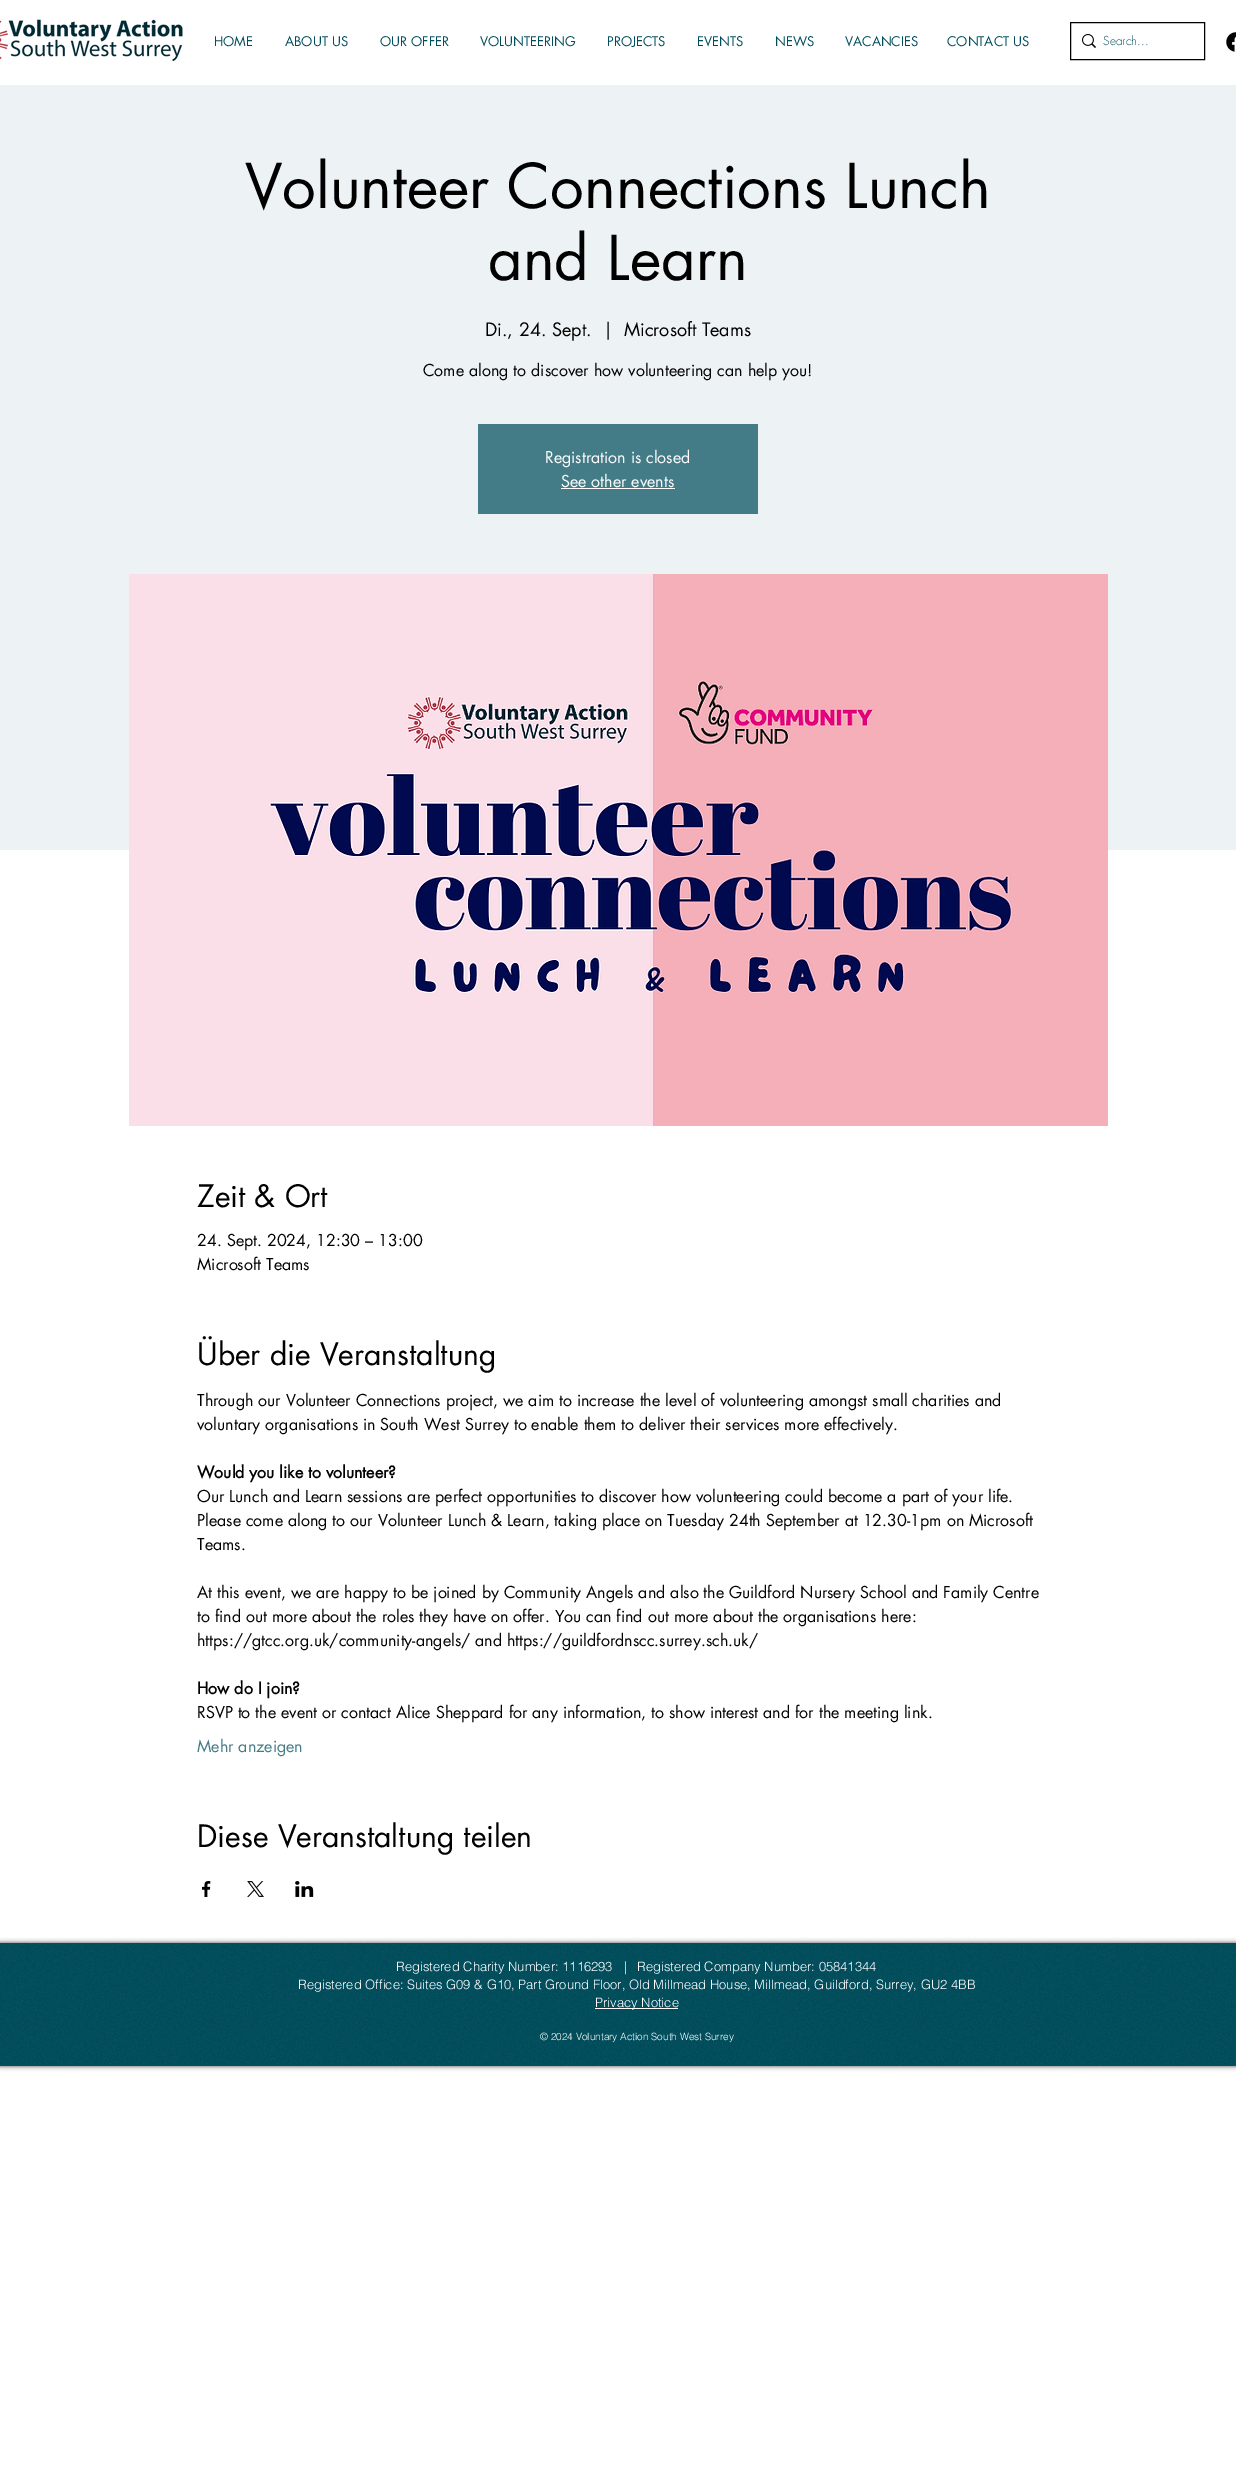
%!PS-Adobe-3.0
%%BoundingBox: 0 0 1236 2469
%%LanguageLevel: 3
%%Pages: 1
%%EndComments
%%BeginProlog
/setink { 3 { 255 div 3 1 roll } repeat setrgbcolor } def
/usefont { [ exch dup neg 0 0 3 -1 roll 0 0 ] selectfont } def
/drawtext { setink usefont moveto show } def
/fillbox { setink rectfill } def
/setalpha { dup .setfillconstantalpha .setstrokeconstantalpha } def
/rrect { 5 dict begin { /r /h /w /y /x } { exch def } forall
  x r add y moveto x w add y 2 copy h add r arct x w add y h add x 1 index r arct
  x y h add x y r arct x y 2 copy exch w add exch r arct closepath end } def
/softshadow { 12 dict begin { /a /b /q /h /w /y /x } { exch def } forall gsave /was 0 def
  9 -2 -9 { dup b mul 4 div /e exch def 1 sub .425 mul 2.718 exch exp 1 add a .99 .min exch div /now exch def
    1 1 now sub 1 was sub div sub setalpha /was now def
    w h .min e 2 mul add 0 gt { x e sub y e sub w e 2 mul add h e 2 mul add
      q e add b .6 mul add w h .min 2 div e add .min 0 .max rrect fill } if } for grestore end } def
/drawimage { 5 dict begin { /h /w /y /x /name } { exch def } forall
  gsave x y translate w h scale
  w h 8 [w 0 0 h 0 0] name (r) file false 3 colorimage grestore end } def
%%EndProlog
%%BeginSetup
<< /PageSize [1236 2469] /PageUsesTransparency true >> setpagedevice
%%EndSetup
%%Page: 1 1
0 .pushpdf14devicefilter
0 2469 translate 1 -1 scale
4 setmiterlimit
0 0 1236 2469 255 255 255 fillbox
(assets/img1.rgb) 0 19 183 43 drawimage
(HOME) 214 46 /futura-Regular 13 0 78 93 drawtext
(ABOUT US) 285 46 /futura-Regular 13 0 78 93 drawtext
(OUR OFFER) 380 46 /futura-Regular 13 0 78 93 drawtext
(VOLUNTEERING) 480 46 /futura-Regular 13 0 78 93 drawtext
(PROJECTS) 607 46 /futura-Regular 13 0 78 93 drawtext
(EVENTS) 697 46 /futura-Regular 13 0 78 93 drawtext
(NEWS) 775 46 /futura-Regular 13 0 78 93 drawtext
(VACANCIES) 845 46 /futura-Regular 13 0 78 93 drawtext
(CONTACT US) 947 46 /futura-Regular 13 0 78 93 drawtext
0 0 0 setink
1070.5 22.5 134 37 rectstroke
(assets/img2.rgb) 1082 34 14 14 drawimage
(Search...) 1103 45 /futura-Light 12 0 78 93 drawtext
(assets/img3.rgb) 1226 32 10 20 drawimage
0 85 1236 765 237 243 244 fillbox
(Volunteer Connections Lunch) 245 208 /futura-Regular 60 0 0 0 drawtext
(and Learn) 488 280 /futura-Regular 60 0 0 0 drawtext
(Di., 24. Sept.) 485 336 /futura-Regular 18 0 0 0 drawtext
(|) 603 336 /futura-Regular 18 0 0 0 drawtext
(Microsoft Teams) 624 336 /futura-Regular 18 0 0 0 drawtext
(Come along to discover how volunteering can help you!) 423 376 /futura-Regular 16 0 0 0 drawtext
478 424 280 90 67 123 134 fillbox
(Registration is closed) 545 463 /futura-Regular 16 255 255 255 drawtext
(See other events) 561 487 /futura-Regular 16 255 255 255 drawtext
561 488 114 1 255 255 255 fillbox
(assets/img4.rgb) 129 574 979 552 drawimage
(Zeit & Ort) 197 1207 /futura-Regular 30 0 0 0 drawtext
(24. Sept. 2024, 12:30 – 13:00) 197 1246 /futura-Regular 16 0 0 0 drawtext
(Microsoft Teams) 197 1270 /futura-Regular 16 0 0 0 drawtext
(Über die Veranstaltung) 197 1365 /futura-Regular 30 0 0 0 drawtext
(Through our Volunteer Connections project, we aim to increase the level of volunteering amongst small charities and) 197 1406 /futura-Regular 16 0 0 0 drawtext
(voluntary organisations in South West Surrey to enable them to deliver their services more effectively.) 197 1430 /futura-Regular 16 0 0 0 drawtext
(Would you like to volunteer?) 197 1478 /futura-Bold 16 0 0 0 drawtext
(Our Lunch and Learn sessions are perfect opportunities to discover how volunteering could become a part of your life.) 197 1502 /futura-Regular 16 0 0 0 drawtext
(Please come along to our Volunteer Lunch & Learn, taking place on Tuesday 24th September at 12.30-1pm on Microsoft) 197 1526 /futura-Regular 16 0 0 0 drawtext
(Teams.) 197 1550 /futura-Regular 16 0 0 0 drawtext
(At this event, we are happy to be joined by Community Angels and also the Guildford Nursery School and Family Centre) 197 1598 /futura-Regular 16 0 0 0 drawtext
(to find out more about the roles they have on offer. You can find out more about the organisations here:) 197 1622 /futura-Regular 16 0 0 0 drawtext
(https://gtcc.org.uk/community-angels/ and https://guildfordnscc.surrey.sch.uk/) 197 1646 /futura-Regular 16 0 0 0 drawtext
(How do I join?) 197 1694 /futura-Bold 16 0 0 0 drawtext
(RSVP to the event or contact Alice Sheppard for any information, to show interest and for the meeting link.) 197 1718 /futura-Regular 16 0 0 0 drawtext
(Mehr anzeigen) 197 1752 /futura-Regular 16 67 123 134 drawtext
(Diese Veranstaltung teilen) 197 1847 /futura-Regular 30 0 0 0 drawtext
(assets/img5.rgb) 202 1881 9 16 drawimage
(assets/img6.rgb) 247 1881 17 16 drawimage
(assets/img7.rgb) 295 1881 19 16 drawimage
0 1943 1236 123 0 2.5 0.7 softshadow
0 1943 1236 123 0 78 93 fillbox
(assets/img8.rgb) 0 1943 1236 123 drawimage
(Registered Charity Number: 1116293   |   Registered Company Number: 05841344) 396 1971 /helvetica-Light 13 255 255 255 drawtext
(Registered Office: Suites G09 & G10, Part Ground Floor, Old Millmead House, Millmead, Guildford, Surrey, GU2 4BB) 298 1989 /helvetica-Light 13 255 255 255 drawtext
595 2008 83 1 255 255 255 fillbox
(Privacy Notice) 595 2007 /helvetica-Light 13 255 255 255 drawtext
(© 2024 Voluntary Action South West Surrey) 540 2040 /helvetica-Light 10 255 255 255 drawtext
.poppdf14devicefilter showpage
%%EOF
